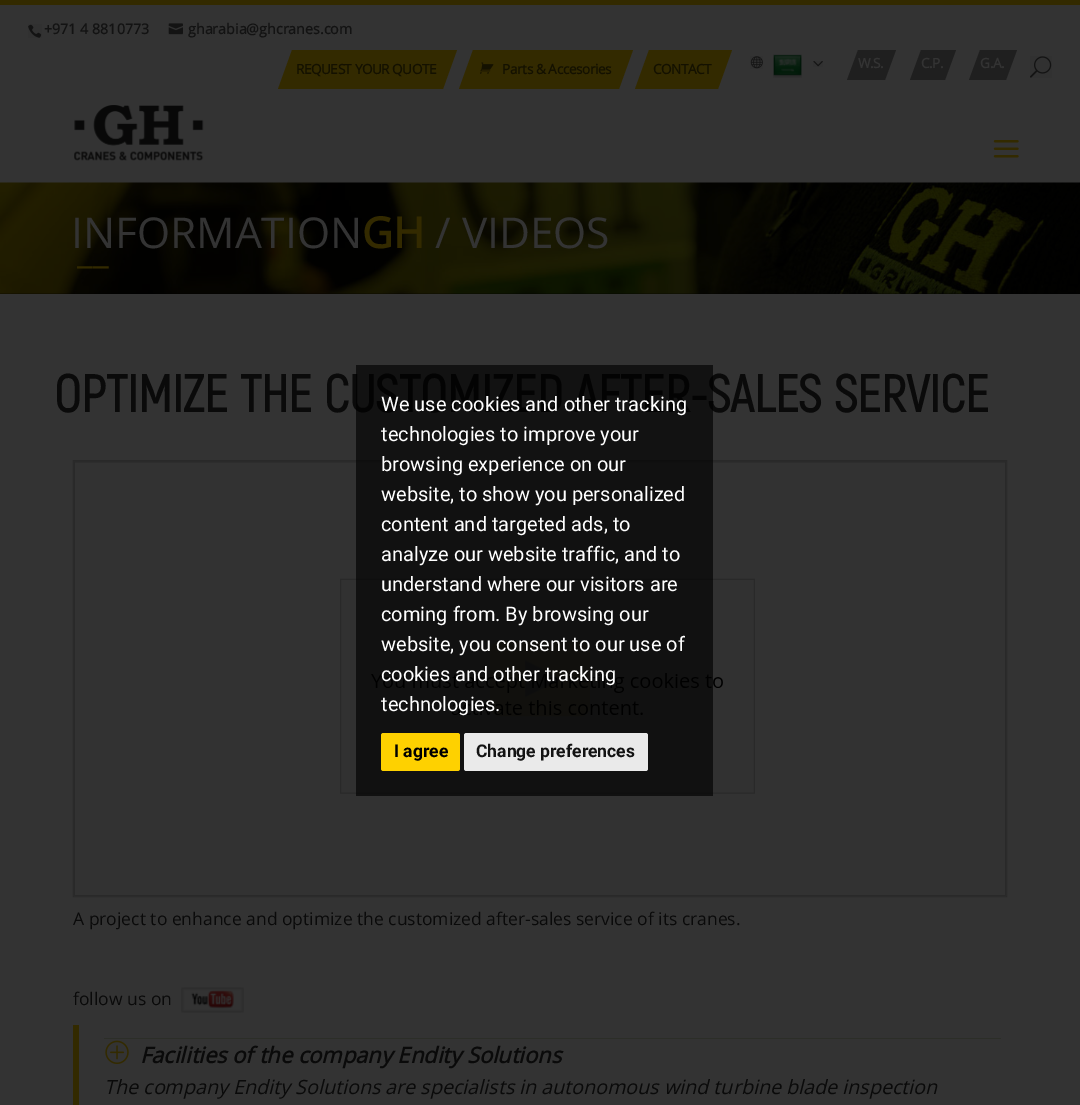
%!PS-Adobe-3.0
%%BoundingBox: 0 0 1080 1105
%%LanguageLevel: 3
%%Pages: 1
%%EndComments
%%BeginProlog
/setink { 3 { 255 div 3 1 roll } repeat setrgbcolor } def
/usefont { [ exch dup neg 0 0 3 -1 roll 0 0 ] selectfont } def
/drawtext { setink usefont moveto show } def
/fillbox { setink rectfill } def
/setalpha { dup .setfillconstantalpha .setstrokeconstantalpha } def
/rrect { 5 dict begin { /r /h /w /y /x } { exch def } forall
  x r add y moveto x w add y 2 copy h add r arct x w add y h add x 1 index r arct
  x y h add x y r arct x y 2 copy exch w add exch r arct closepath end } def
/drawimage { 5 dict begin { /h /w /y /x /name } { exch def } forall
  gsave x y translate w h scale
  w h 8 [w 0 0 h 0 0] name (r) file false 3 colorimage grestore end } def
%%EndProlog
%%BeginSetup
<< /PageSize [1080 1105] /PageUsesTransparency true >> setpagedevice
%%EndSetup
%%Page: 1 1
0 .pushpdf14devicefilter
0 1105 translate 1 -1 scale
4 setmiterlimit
0 0 1080 1105 51 51 51 fillbox
0 0 1080 5 51 42 0 fillbox
(assets/img1.rgb) 28 24 14 14 drawimage
(+971 4 8810773) 44 34 /OpenSans-Bold 14.25 19 19 19 drawtext
(assets/img2.rgb) 168 23 15 12 drawimage
(gharabia@ghcranes.com) 188 34 /OpenSans-Bold 14.25 19 19 19 drawtext
51 42 0 setink
292 50 moveto 457 50 lineto 443 89 lineto 278 89 lineto closepath fill
/OpenSans-Bold 13.6 usefont
20 17 0 setink
296 74 moveto -0.5 0 (REQUEST YOUR QUOTE) ashow
51 42 0 setink
473 50 moveto 633 50 lineto 619 89 lineto 459 89 lineto closepath fill
(assets/img3.rgb) 480 62 14 12 drawimage
20 17 0 setink
502 74 moveto -0.4 0 (Parts & Accesories) ashow
51 42 0 setink
649 50 moveto 732 50 lineto 718 89 lineto 635 89 lineto closepath fill
20 17 0 setink
653 74 moveto -0.5 0 (CONTACT) ashow
(assets/img4.rgb) 750 56 13 13 drawimage
(assets/img5.rgb) 773 54 29 24 drawimage
(assets/img6.rgb) 813 61 10 6 drawimage
31 31 31 setink
858 50 moveto 896 50 lineto 885 80 lineto 847 80 lineto closepath fill
51 51 51 setink
858 68 moveto -0.5 0 (W.S.) ashow
31 31 31 setink
921 50 moveto 956 50 lineto 945 80 lineto 910 80 lineto closepath fill
51 51 51 setink
921 68 moveto -0.5 0 (C.P.) ashow
31 31 31 setink
980 50 moveto 1017 50 lineto 1006 80 lineto 969 80 lineto closepath fill
51 51 51 setink
980 68 moveto -0.4 0 (G.A.) ashow
(assets/img7.rgb) 1030 56 22 22 drawimage
(assets/img8.rgb) 74 105 130 56 drawimage
(assets/img9.rgb) 993 140 26 18 drawimage
(assets/img10.rgb) 0 182 1080 112 drawimage
(INFORMATION) 71 248 /OpenSans-Regular 42.5 51 51 51 drawtext
(GH) 362 248 /OpenSans-Bold 42.5 51 42 0 drawtext
(/ VIDEOS) 435 248 /OpenSans-Regular 42.5 51 51 51 drawtext
(__) 77 263 /OpenSans-Regular 35 51 42 0 drawtext
(OPTIMIZE THE CUSTOMIZED AFTER-SALES SERVICE) 54 412 /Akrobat-Bold 52.5 10 10 10 drawtext
(assets/img11.rgb) 72 460 936 438 drawimage
(A project to enhance and optimize the customized after-sales service of its cranes.) 73 925 /OpenSans-Regular 17.5 10 10 10 drawtext
(follow us on) 73 1005 /OpenSans-Regular 17.5 10 10 10 drawtext
(assets/img12.rgb) 181 987 63 26 drawimage
73 1025 6 80 51 42 0 fillbox
104 1038 897 1 44 46 40 fillbox
(assets/img13.rgb) 105 1040 24 25 drawimage
(Facilities of the company Endity Solutions) 140 1063 /OpenSans-BoldItalic 21.9 10 10 10 drawtext
(The company Endity Solutions are specialists in autonomous wind turbine blade inspection) 104 1094 /OpenSans-Italic 19.7 10 10 10 drawtext
0.65 setalpha
356 365 357 431 0 0 0 fillbox
1 setalpha
(We use cookies and other tracking) 381 411 /Roboto-Regular 20 255 255 255 drawtext
(technologies to improve your) 381 441 /Roboto-Regular 20 255 255 255 drawtext
(browsing experience on our) 381 471 /Roboto-Regular 20 255 255 255 drawtext
(website, to show you personalized) 381 501 /Roboto-Regular 20 255 255 255 drawtext
(content and targeted ads, to) 381 531 /Roboto-Regular 20 255 255 255 drawtext
(analyze our website traffic, and to) 381 561 /Roboto-Regular 20 255 255 255 drawtext
(understand where our visitors are) 381 591 /Roboto-Regular 20 255 255 255 drawtext
(coming from. By browsing our) 381 621 /Roboto-Regular 20 255 255 255 drawtext
(website, you consent to our use of) 381 651 /Roboto-Regular 20 255 255 255 drawtext
(cookies and other tracking) 381 681 /Roboto-Regular 20 255 255 255 drawtext
(technologies.) 381 711 /Roboto-Regular 20 255 255 255 drawtext
254 209 0 setink
381 733 79 38 2.5 rrect fill
(I agree) 394 757 /Roboto-Bold 17.5 0 0 0 drawtext
234 234 234 setink
464 733 184 38 2.5 rrect fill
(Change preferences) 476 757 /Roboto-Bold 17.5 19 19 19 drawtext
.poppdf14devicefilter showpage
%%EOF
